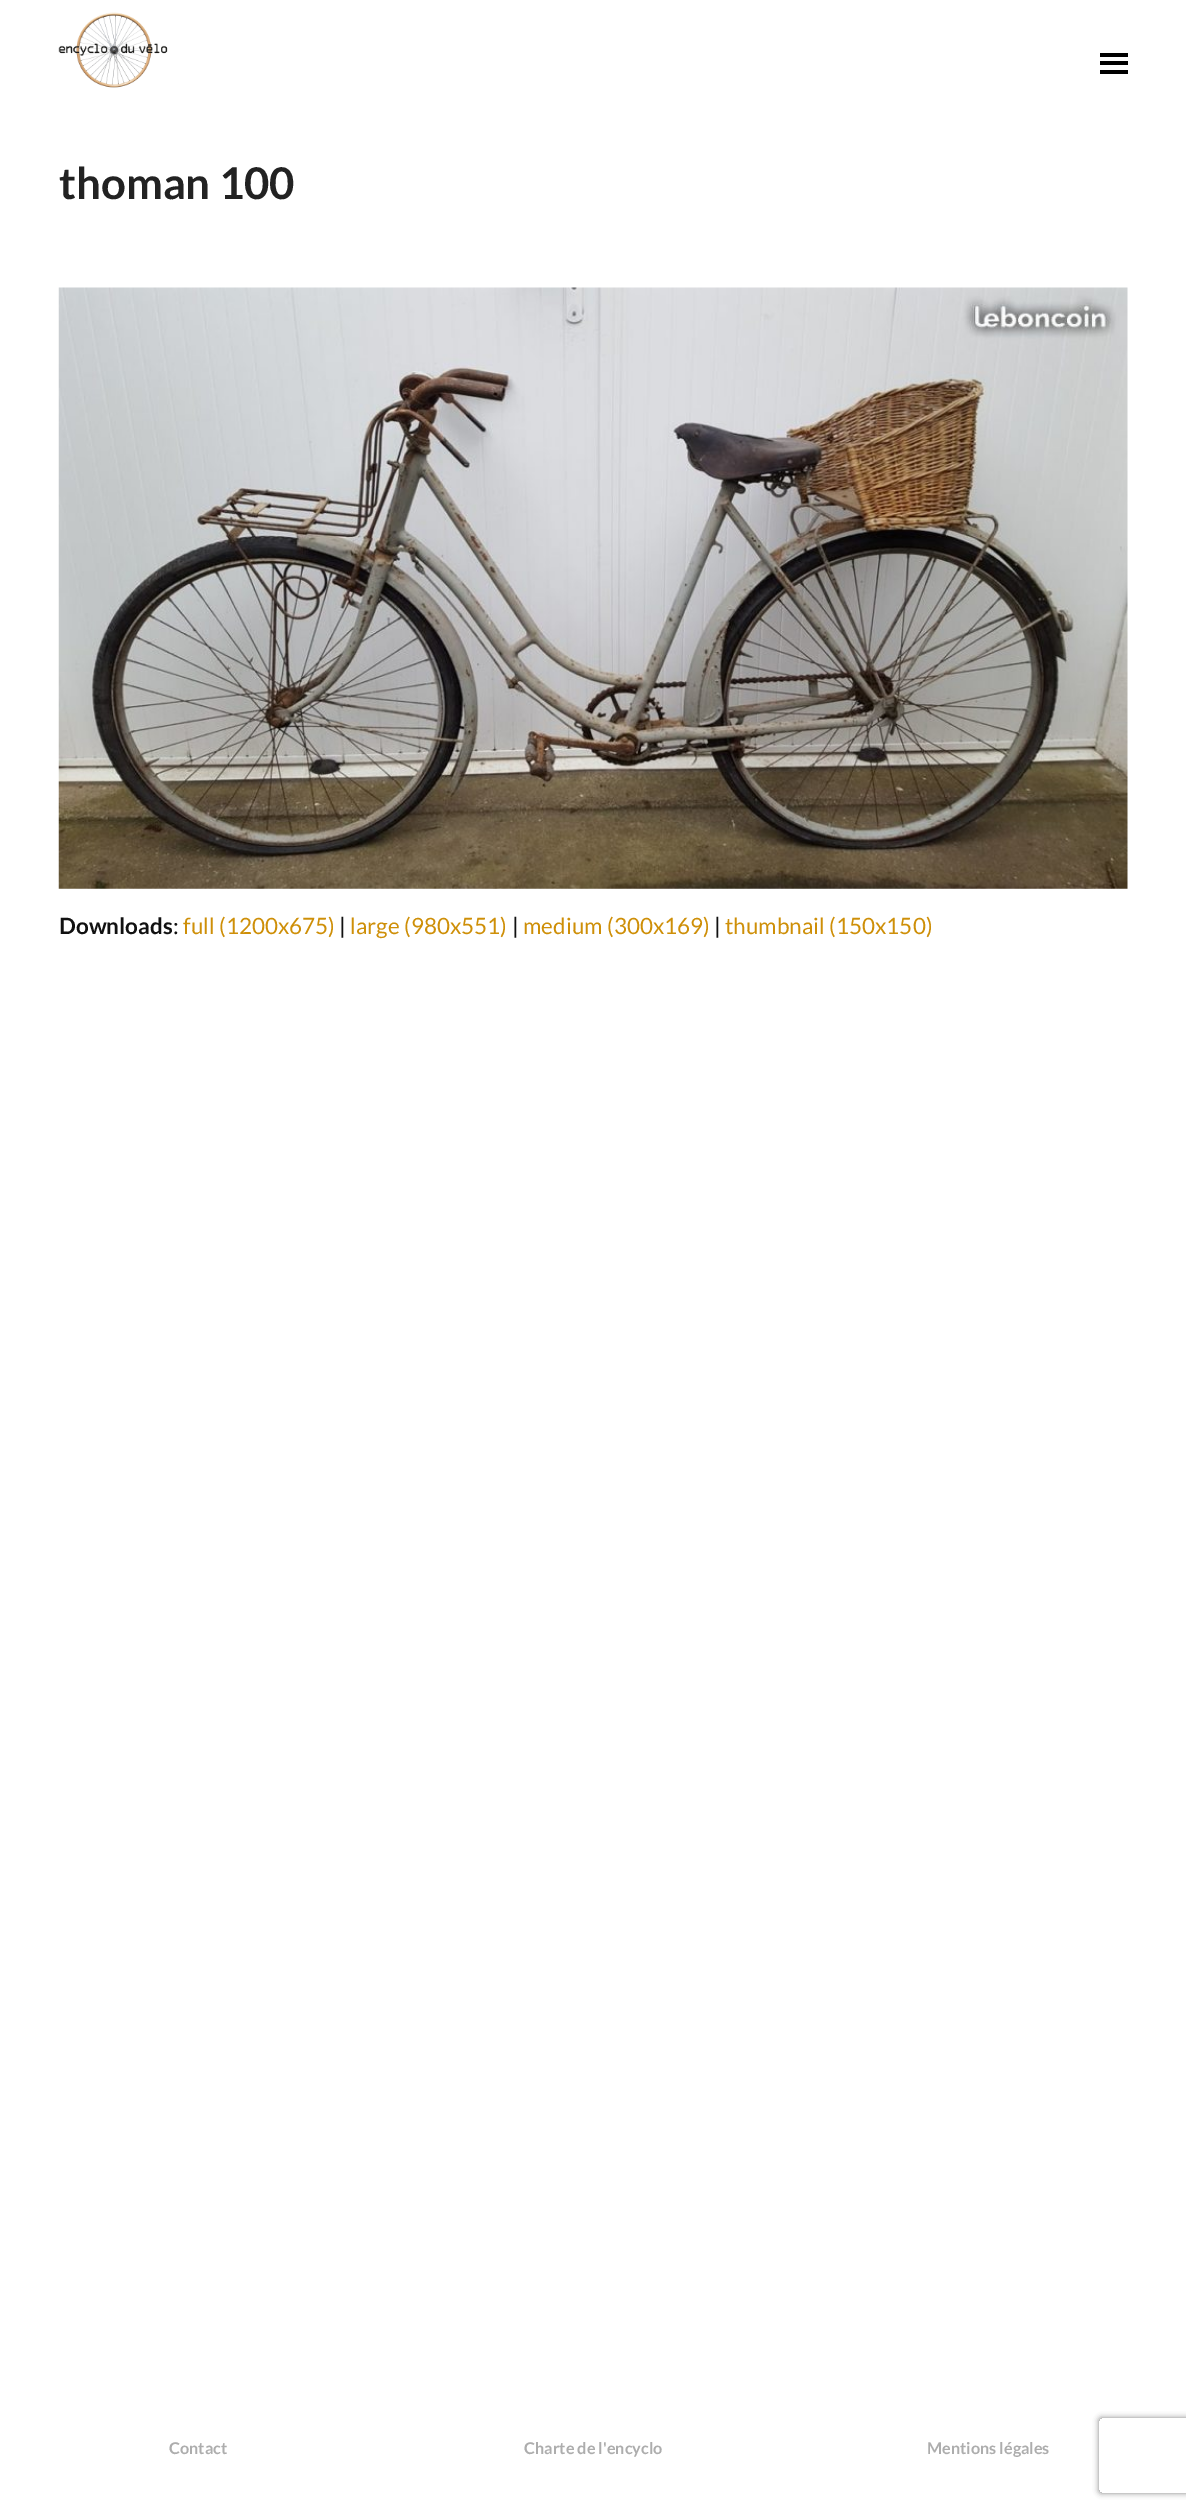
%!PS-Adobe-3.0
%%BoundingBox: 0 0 1186 2509
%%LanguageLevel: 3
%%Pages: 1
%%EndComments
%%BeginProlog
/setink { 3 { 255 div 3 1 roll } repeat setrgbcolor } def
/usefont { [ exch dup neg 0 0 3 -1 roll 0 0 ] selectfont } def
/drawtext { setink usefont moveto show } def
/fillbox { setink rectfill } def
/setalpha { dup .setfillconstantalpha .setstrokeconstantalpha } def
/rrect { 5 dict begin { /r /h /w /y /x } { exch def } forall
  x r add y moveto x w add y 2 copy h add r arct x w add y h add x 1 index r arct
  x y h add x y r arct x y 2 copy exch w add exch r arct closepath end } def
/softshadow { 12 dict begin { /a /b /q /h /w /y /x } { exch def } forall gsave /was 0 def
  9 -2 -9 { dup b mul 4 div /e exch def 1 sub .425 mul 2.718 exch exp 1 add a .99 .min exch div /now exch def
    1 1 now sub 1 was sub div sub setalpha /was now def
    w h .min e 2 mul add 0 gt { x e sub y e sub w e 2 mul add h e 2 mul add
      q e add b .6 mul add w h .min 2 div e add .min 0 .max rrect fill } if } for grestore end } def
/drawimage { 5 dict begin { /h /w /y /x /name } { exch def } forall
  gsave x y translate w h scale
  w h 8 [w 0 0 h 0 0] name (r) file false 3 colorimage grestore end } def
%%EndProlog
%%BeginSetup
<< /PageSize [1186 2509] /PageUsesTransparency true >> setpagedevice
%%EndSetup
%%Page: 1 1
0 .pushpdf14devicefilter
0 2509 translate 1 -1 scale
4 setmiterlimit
0 0 1186 2509 255 255 255 fillbox
(assets/img1.rgb) 58 12 110 76 drawimage
1100 61 28 4 0 0 0 fillbox
1100 53 28 4 0 0 0 fillbox
1100 70 28 4 0 0 0 fillbox
(thoman 100) 59 199 /Lato-Bold 43.75 34 34 34 drawtext
(assets/img2.rgb) 58 287 1070 602 drawimage
(Downloads) 59 934 /Lato-Bold 22.5 17 17 17 drawtext
(:) 173 934 /Lato-Regular 22.5 17 17 17 drawtext
(full \(1200x675\)) 183 934 /Lato-Regular 22.5 206 143 8 drawtext
(|) 339 934 /Lato-Regular 22.5 17 17 17 drawtext
(large \(980x551\)) 350 934 /Lato-Regular 22.5 206 143 8 drawtext
(|) 512 934 /Lato-Regular 22.5 17 17 17 drawtext
(medium \(300x169\)) 523 934 /Lato-Regular 22.5 206 143 8 drawtext
(|) 714 934 /Lato-Regular 22.5 17 17 17 drawtext
(thumbnail \(150x150\)) 725 934 /Lato-Regular 22.5 206 143 8 drawtext
(Contact) 169 2454 /Lato-Bold 16.25 173 173 173 drawtext
(Charte de l'encyclo) 524 2454 /Lato-Bold 16.25 173 173 173 drawtext
(Mentions légales) 927 2454 /Lato-Bold 16.25 173 173 173 drawtext
gsave
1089 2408 moveto 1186 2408 lineto 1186 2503 lineto 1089 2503 lineto closepath 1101.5 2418 moveto 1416.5 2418 lineto 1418 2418 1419 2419 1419 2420.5 curveto 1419 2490.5 lineto 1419 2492 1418 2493 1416.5 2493 curveto 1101.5 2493 lineto 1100 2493 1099 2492 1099 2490.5 curveto 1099 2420.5 lineto 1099 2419 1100 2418 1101.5 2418 curveto closepath eoclip newpath
128 128 128 setink
1099 2418 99 75 2.5 3 1 softshadow
grestore
.poppdf14devicefilter showpage
%%EOF
